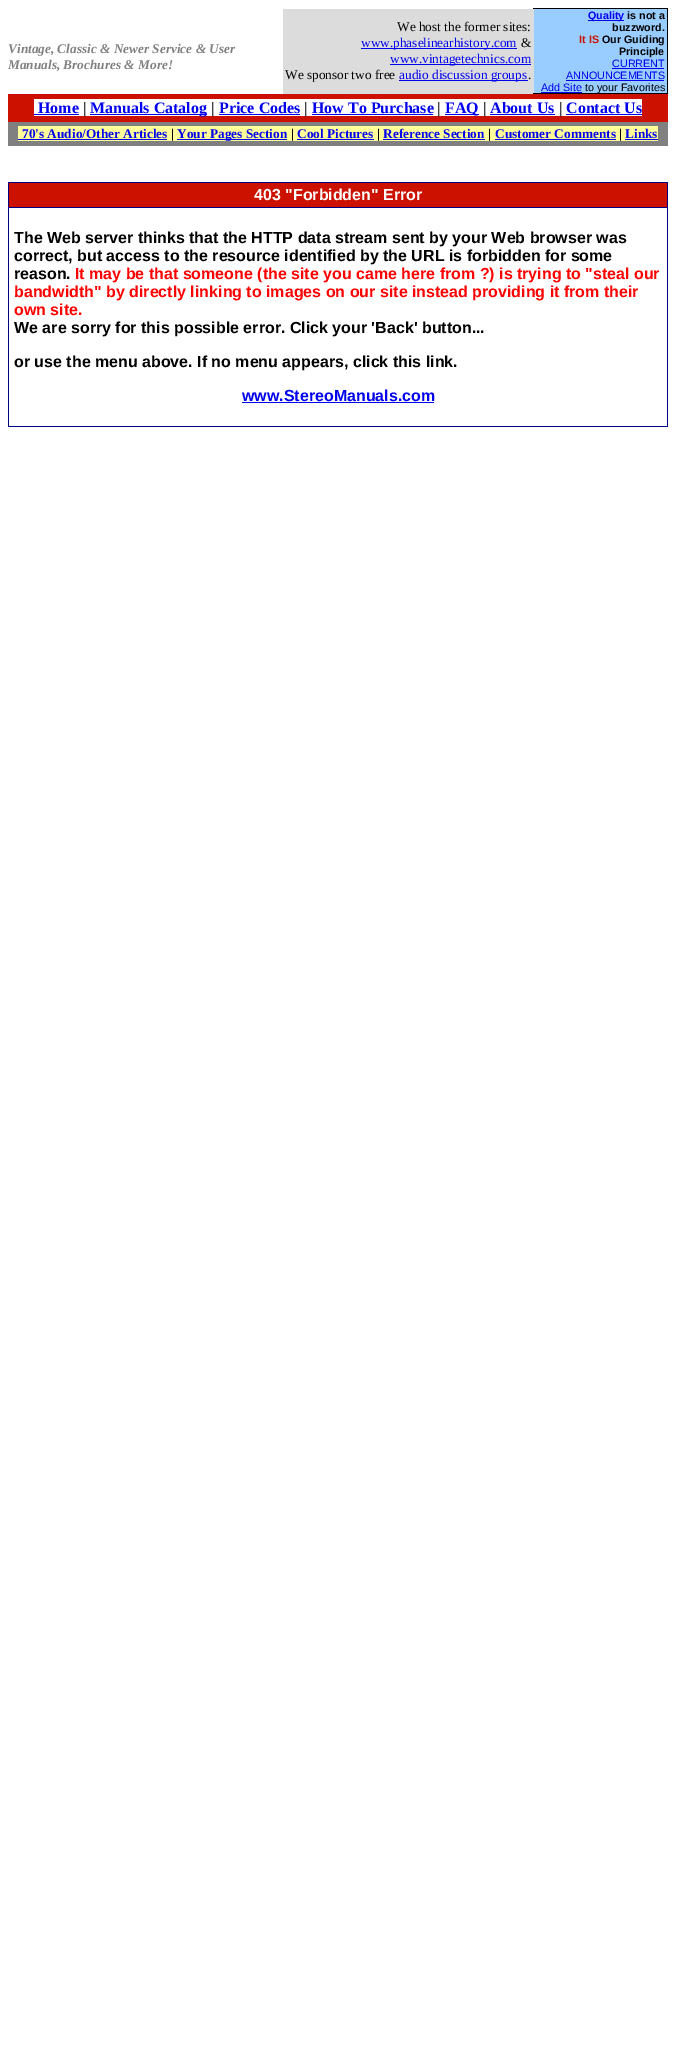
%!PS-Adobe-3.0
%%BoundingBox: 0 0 676 2068
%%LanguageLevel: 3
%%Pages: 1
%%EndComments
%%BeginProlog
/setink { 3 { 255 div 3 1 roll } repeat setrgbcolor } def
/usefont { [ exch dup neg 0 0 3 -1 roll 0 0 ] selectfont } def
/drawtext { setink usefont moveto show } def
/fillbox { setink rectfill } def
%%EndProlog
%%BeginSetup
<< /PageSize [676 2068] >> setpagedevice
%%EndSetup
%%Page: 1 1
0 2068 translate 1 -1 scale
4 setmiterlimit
0 0 676 2068 255 255 255 fillbox
(Vintage, Classic & Newer Service & User) 8 53 /LiberationSerif-BoldItalic 13.3 128 128 128 drawtext
(Manuals, Brochures & More!) 8 69 /LiberationSerif-BoldItalic 13.3 128 128 128 drawtext
283 9 251 85 220 220 220 fillbox
(We host the former sites:) 397 31 /LiberationSerif-Regular 13.3 0 0 0 drawtext
361 48 156 1 0 0 238 fillbox
(www.phaselinearhistory.com) 361 47 /LiberationSerif-Regular 13.3 0 0 238 drawtext
(&) 521 47 /LiberationSerif-Regular 13.3 0 0 0 drawtext
390 64 141 1 0 0 238 fillbox
(www.vintagetechnics.com) 390 63 /LiberationSerif-Regular 13.3 0 0 238 drawtext
(We sponsor two free) 285 79 /LiberationSerif-Regular 13.3 0 0 0 drawtext
399 80 129 1 0 0 238 fillbox
(audio discussion groups) 399 79 /LiberationSerif-Regular 13.3 0 0 238 drawtext
(.) 528 79 /LiberationSerif-Regular 13.3 0 0 0 drawtext
534 9 133 84 153 204 255 fillbox
533 8 135 1 0 0 0 fillbox
667 8 1 86 0 0 0 fillbox
533 93 135 1 0 0 0 fillbox
588 20 36 1 0 0 238 fillbox
(Quality) 588 19 /LiberationSans-Bold 10.75 0 0 238 drawtext
(is not a) 627 19 /LiberationSans-Bold 10.75 0 0 0 drawtext
(buzzword.) 612 31 /LiberationSans-Bold 10.75 0 0 0 drawtext
(It IS) 579 43 /LiberationSans-Bold 10.75 204 17 0 drawtext
(Our Guiding) 602 43 /LiberationSans-Bold 10.75 0 0 0 drawtext
(Principle) 619 55 /LiberationSans-Bold 10.75 0 0 0 drawtext
(CURRENT) 612 67 /LiberationSans-Regular 10.75 0 0 238 drawtext
612 68 52 1 0 0 238 fillbox
(ANNOUNCEMENTS) 566 79 /LiberationSans-Regular 10.75 0 0 238 drawtext
566 80 98 1 0 0 238 fillbox
(Add Site) 541 91 /LiberationSans-Regular 10.75 0 0 238 drawtext
541 92 41 1 0 0 238 fillbox
(to your Favorites) 585 91 /LiberationSans-Regular 10.75 0 0 0 drawtext
8 94 660 28 204 17 0 fillbox
34 99 608 17 255 255 255 fillbox
(Home) 38 113 /LiberationSerif-Bold 16 0 0 238 drawtext
34 114 45 1 0 0 238 fillbox
(|) 83 113 /LiberationSerif-Bold 16 0 0 0 drawtext
90 114 117 1 0 0 238 fillbox
(Manuals Catalog) 90 113 /LiberationSerif-Bold 16 0 0 238 drawtext
(|) 211 113 /LiberationSerif-Bold 16 0 0 0 drawtext
(Price Codes) 219 113 /LiberationSerif-Bold 16 0 0 238 drawtext
219 114 81 1 0 0 238 fillbox
(|) 304 113 /LiberationSerif-Bold 16 0 0 0 drawtext
(How To Purchase) 312 113 /LiberationSerif-Bold 16 0 0 238 drawtext
312 114 121 1 0 0 238 fillbox
(|) 437 113 /LiberationSerif-Bold 16 0 0 0 drawtext
445 114 34 1 0 0 238 fillbox
(FAQ) 445 113 /LiberationSerif-Bold 16 0 0 238 drawtext
(|) 483 113 /LiberationSerif-Bold 16 0 0 0 drawtext
(About Us) 490 113 /LiberationSerif-Bold 16 0 0 238 drawtext
490 114 65 1 0 0 238 fillbox
(|) 559 113 /LiberationSerif-Bold 16 0 0 0 drawtext
(Contact Us) 566 113 /LiberationSerif-Bold 16 0 0 238 drawtext
566 114 76 1 0 0 238 fillbox
8 122 660 24 128 128 128 fillbox
18 126 149 15 255 255 153 fillbox
(70's Audio/Other Articles) 22 138 /LiberationSerif-Bold 13.3 0 0 238 drawtext
18 139 149 1 0 0 238 fillbox
167 126 120 15 255 255 153 fillbox
(|) 171 138 /LiberationSerif-Bold 13.3 0 0 0 drawtext
177 139 110 1 0 0 238 fillbox
(Your Pages Section) 177 138 /LiberationSerif-Bold 13.3 0 0 238 drawtext
287 126 371 15 255 255 153 fillbox
(|) 291 138 /LiberationSerif-Bold 13.3 0 0 0 drawtext
(Cool Pictures) 297 138 /LiberationSerif-Bold 13.3 0 0 238 drawtext
297 139 77 1 0 0 238 fillbox
(|) 377 138 /LiberationSerif-Bold 13.3 0 0 0 drawtext
(Reference Section) 383 138 /LiberationSerif-Bold 13.3 0 0 238 drawtext
383 139 102 1 0 0 238 fillbox
(|) 488 138 /LiberationSerif-Bold 13.3 0 0 0 drawtext
(Customer Comments) 495 138 /LiberationSerif-Bold 13.3 0 0 238 drawtext
495 139 121 1 0 0 238 fillbox
(|) 619 138 /LiberationSerif-Bold 13.3 0 0 0 drawtext
(Links) 625 138 /LiberationSerif-Bold 13.3 0 0 238 drawtext
625 139 33 1 0 0 238 fillbox
8 182 660 1 0 0 128 fillbox
667 182 1 245 0 0 128 fillbox
8 426 660 1 0 0 128 fillbox
8 182 1 245 0 0 128 fillbox
9 183 658 24 204 17 0 fillbox
(403 "Forbidden" Error) 254 200 /LiberationSans-Bold 16 255 255 255 drawtext
8 207 660 1 0 0 128 fillbox
(The Web server thinks that the HTTP data stream sent by your Web browser was) 14 243 /LiberationSans-Bold 16 0 0 0 drawtext
(correct, but access to the resource identified by the URL is forbidden for some) 14 261 /LiberationSans-Bold 16 0 0 0 drawtext
(reason.) 14 279 /LiberationSans-Bold 16 0 0 0 drawtext
(It may be that someone \(the site you came here from ?\) is trying to "steal our) 75 279 /LiberationSans-Bold 16 255 0 0 drawtext
(bandwidth" by directly linking to images on our site instead providing it from their) 14 297 /LiberationSans-Bold 16 255 0 0 drawtext
(own site.) 14 315 /LiberationSans-Bold 16 255 0 0 drawtext
(We are sorry for this possible error. Click your 'Back' button...) 14 333 /LiberationSans-Bold 16 0 0 0 drawtext
(or use the menu above. If no menu appears, click this link.) 14 367 /LiberationSans-Bold 16 0 0 0 drawtext
(www.StereoManuals.com) 242 401 /LiberationSans-Bold 16 0 0 238 drawtext
242 402 192 1 0 0 238 fillbox
showpage
%%EOF
